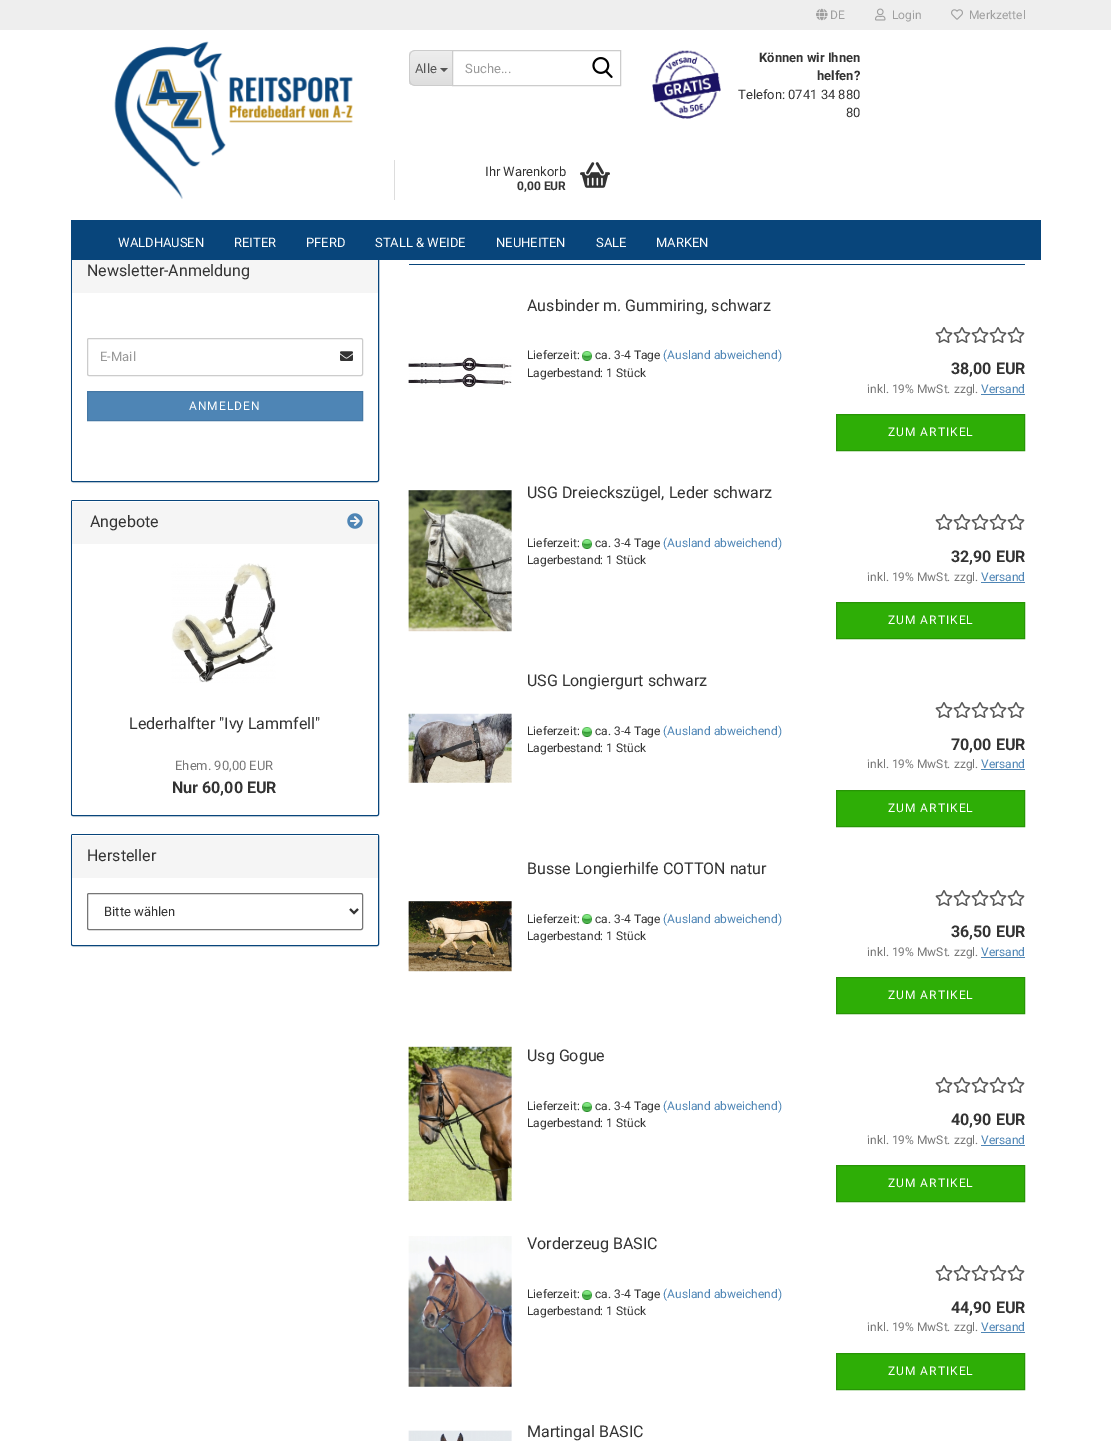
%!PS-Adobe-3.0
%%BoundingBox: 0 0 1111 1441
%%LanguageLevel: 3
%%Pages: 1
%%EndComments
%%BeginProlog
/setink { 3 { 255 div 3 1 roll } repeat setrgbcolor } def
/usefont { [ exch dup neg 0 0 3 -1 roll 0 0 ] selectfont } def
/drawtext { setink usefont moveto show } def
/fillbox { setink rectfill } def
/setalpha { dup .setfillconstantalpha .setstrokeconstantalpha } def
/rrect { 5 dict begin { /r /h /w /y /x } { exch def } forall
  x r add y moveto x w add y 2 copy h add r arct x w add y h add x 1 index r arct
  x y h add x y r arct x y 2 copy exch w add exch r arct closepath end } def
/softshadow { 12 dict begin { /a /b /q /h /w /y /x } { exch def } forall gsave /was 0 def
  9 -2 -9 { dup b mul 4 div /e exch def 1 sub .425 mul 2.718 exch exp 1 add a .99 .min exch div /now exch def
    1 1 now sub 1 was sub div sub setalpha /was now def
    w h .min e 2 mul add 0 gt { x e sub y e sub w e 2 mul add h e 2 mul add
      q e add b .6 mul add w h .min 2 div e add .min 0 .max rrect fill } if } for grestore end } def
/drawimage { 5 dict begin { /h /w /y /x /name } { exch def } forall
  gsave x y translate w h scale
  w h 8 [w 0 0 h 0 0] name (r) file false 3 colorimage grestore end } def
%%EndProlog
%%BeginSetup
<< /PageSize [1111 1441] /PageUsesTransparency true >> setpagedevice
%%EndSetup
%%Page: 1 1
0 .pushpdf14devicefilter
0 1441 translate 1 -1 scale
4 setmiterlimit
0 0 1111 1441 255 255 255 fillbox
0 0 0 setink
71 250 308 233 2 0.5 0.05 softshadow
255 255 255 setink
71.5 249.5 307 232 1.5 rrect gsave fill grestore
8 69 123 setink
stroke
71 249 308 11 255 255 255 fillbox
0 0 1111 30 238 238 238 fillbox
(assets/img1.rgb) 816 8 12 13 drawimage
(DE) 830 19 /Roboto-Regular 12 159 159 159 drawtext
(assets/img2.rgb) 875 8 11 13 drawimage
(Login) 892 19 /Roboto-Regular 12 159 159 159 drawtext
(assets/img3.rgb) 951 9 12 11 drawimage
(Merkzettel) 969 19 /Roboto-Regular 12 159 159 159 drawtext
(assets/img4.rgb) 114 41 239 158 drawimage
gsave
415 50 moveto 452 50 lineto 452 86 lineto 415 86 lineto 411.5 86 409 83.5 409 80 curveto 409 56 lineto 409 52.5 411.5 50 415 50 curveto closepath clip newpath
gsave 409 51 moveto 452 51 lineto 452 85 lineto 409 85 lineto closepath clip newpath
<< /ShadingType 2 /ColorSpace /DeviceRGB /Coords [431 51 431 85] /Extend [true true] /Function << /FunctionType 2 /Domain [0 1] /C0 [0.933 0.933 0.933] /C1 [0.871 0.871 0.871] /N 1 >> >> shfill grestore
grestore
204 204 204 setink
415 50 moveto 452 50 lineto 452 86 lineto 415 86 lineto 412 86 409 83 409 80 curveto 409 56 lineto 409 53 412 50 415 50 curveto closepath 415 51 moveto 452 51 lineto 452 85 lineto 415 85 lineto 412 85 410 83 410 80 curveto 410 56 lineto 410 53 412 51 415 51 curveto closepath eofill
(Alle) 415 73 /Roboto-Regular 13 85 85 85 drawtext
440 68 moveto 448 68 lineto 444 72 lineto closepath fill
204 204 204 setink
452.5 50.5 168 35 rectstroke
(Suche...) 465 73 /Roboto-Regular 13 153 153 153 drawtext
(assets/img5.rgb) 592 57 21 21 drawimage
(assets/img6.rgb) 652 50 69 69 drawimage
(Können wir Ihnen) 759 62 /Roboto-Bold 13 51 51 51 drawtext
(helfen?) 817 80 /Roboto-Bold 13 51 51 51 drawtext
(Telefon: 0741 34 880) 738 99 /Roboto-Regular 13 51 51 51 drawtext
(80) 846 117 /Roboto-Regular 13 51 51 51 drawtext
394 160 1 40 221 221 221 fillbox
(Ihr Warenkorb) 485 176 /Roboto-Regular 13 51 51 51 drawtext
(0,00 EUR) 517 190 /Roboto-Bold 12 51 51 51 drawtext
(assets/img7.rgb) 580 162 30 26 drawimage
71 220 970 40 8 69 123 fillbox
(WALDHAUSEN) 118 247 /Roboto-Regular 13 255 255 255 drawtext
(REITER) 234 247 /Roboto-Regular 13 255 255 255 drawtext
(PFERD) 306 247 /Roboto-Regular 13 255 255 255 drawtext
(STALL & WEIDE) 375 247 /Roboto-Regular 13 255 255 255 drawtext
(NEUHEITEN) 496 247 /Roboto-Regular 13 255 255 255 drawtext
(SALE) 596 247 /Roboto-Regular 13 255 255 255 drawtext
(MARKEN) 656 247 /Roboto-Regular 13 255 255 255 drawtext
72 260 306 33 245 245 245 fillbox
(Newsletter-Anmeldung) 87 276 /Roboto-Regular 16 51 51 51 drawtext
255 255 255 setink
72 293 moveto 378 293 lineto 378 479 lineto 378 480 377 481 376 481 curveto 74 481 lineto 73 481 72 480 72 479 curveto closepath fill
204 204 204 setink
87.5 338.5 275 37 1.5 rrect stroke
(E-Mail) 100 361 /Roboto-Regular 13 153 153 153 drawtext
(assets/img8.rgb) 340 351 13 10 drawimage
78 133 181 setink
87.5 391.5 moveto 362.5 391.5 lineto 362.5 420.5 lineto 87.5 420.5 lineto closepath gsave fill grestore
69 120 165 setink
stroke
/Roboto-Regular 12 usefont
255 255 255 setink
189 410 moveto 1 0 (ANMELDEN) ashow
0 0 0 setink
71 501 308 316 2 0.5 0.05 softshadow
255 255 255 setink
71.5 500.5 307 315 1.5 rrect gsave fill grestore
8 69 123 setink
stroke
245 245 245 setink
73 501 moveto 377 501 lineto 377.5 501 378 501.5 378 502 curveto 378 544 lineto 72 544 lineto 72 502 lineto 72 501.5 72.5 501 73 501 curveto closepath fill
255 255 255 setink
73 502 moveto 377 502 lineto 378 502 378 502 378 503 curveto 378 502 378 501 377 501 curveto 73 501 lineto 72 501 lineto 72 503 lineto closepath fill
(Angebote) 90 527 /Roboto-Regular 16 51 51 51 drawtext
(assets/img9.rgb) 347 513 16 16 drawimage
255 255 255 setink
72 544 moveto 378 544 lineto 378 813 lineto 378 814 377 815 376 815 curveto 74 815 lineto 73 815 72 814 72 813 curveto closepath fill
(assets/img10.rgb) 171 563 105 120 drawimage
(Lederhalfter "Ivy Lammfell") 129 729 /Roboto-Regular 16 51 51 51 drawtext
(Ehem. 90,00 EUR) 175 770 /Roboto-Regular 13 119 119 119 drawtext
(Nur 60,00 EUR) 172 793 /Roboto-Bold 16 51 51 51 drawtext
0 0 0 setink
71 835 308 112 2 0.5 0.05 softshadow
255 255 255 setink
71.5 834.5 307 111 1.5 rrect gsave fill grestore
8 69 123 setink
stroke
245 245 245 setink
73 835 moveto 377 835 lineto 377.5 835 378 835.5 378 836 curveto 378 878 lineto 72 878 lineto 72 836 lineto 72 835.5 72.5 835 73 835 curveto closepath fill
255 255 255 setink
73 836 moveto 377 836 lineto 378 836 378 836 378 837 curveto 378 836 378 835 377 835 curveto 73 835 lineto 72 835 lineto 72 837 lineto closepath fill
(Hersteller) 87 861 /Roboto-Regular 16 51 51 51 drawtext
255 255 255 setink
72 878 moveto 378 878 lineto 378 943 lineto 378 944 377 945 376 945 curveto 74 945 lineto 73 945 72 944 72 943 curveto closepath fill
118 118 118 setink
87.5 893.5 275 36 1.5 rrect stroke
51 51 51 setink
2 setlinewidth
350 909 moveto 354 913 lineto 358 909 lineto stroke
(Bitte wählen) 104 916 /Roboto-Regular 13 51 51 51 drawtext
409 264 616 1 8 69 123 fillbox
(assets/img11.rgb) 408 357 104 31 drawimage
(Ausbinder m. Gummiring, schwarz) 527 311 /Roboto-Regular 16 51 51 51 drawtext
(Lieferzeit:) 527 359 /Roboto-Regular 12 51 51 51 drawtext
(assets/img12.rgb) 582 351 10 10 drawimage
(ca. 3-4 Tage) 595 359 /Roboto-Regular 12 51 51 51 drawtext
(\(Ausland abweichend\)) 663 359 /Roboto-Regular 12 78 133 181 drawtext
(Lagerbestand: 1 Stück) 527 377 /Roboto-Regular 12 51 51 51 drawtext
(assets/img13.rgb) 935 327 18 16 drawimage
(assets/img13.rgb) 953 327 18 16 drawimage
(assets/img13.rgb) 971 327 18 16 drawimage
(assets/img13.rgb) 989 327 18 16 drawimage
(assets/img13.rgb) 1007 327 18 16 drawimage
(38,00 EUR) 951 374 /Roboto-Bold 16 51 51 51 drawtext
(inkl. 19% MwSt. zzgl.) 867 393 /Roboto-Regular 12 119 119 119 drawtext
(Versand) 981 393 /Roboto-Regular 12 78 133 181 drawtext
981 394 44 1 78 133 181 fillbox
46 174 6 setink
836.5 414.5 moveto 1024.5 414.5 lineto 1024.5 450.5 lineto 836.5 450.5 lineto closepath gsave fill grestore
39 149 5 setink
1 setlinewidth
stroke
255 255 255 setink
888 436 moveto 1 0 (ZUM ARTIKEL) ashow
(assets/img14.rgb) 408 490 104 142 drawimage
(USG Dreieckszügel, Leder schwarz) 527 498 /Roboto-Regular 16 51 51 51 drawtext
(Lieferzeit:) 527 547 /Roboto-Regular 12 51 51 51 drawtext
(assets/img12.rgb) 582 539 10 10 drawimage
(ca. 3-4 Tage) 595 547 /Roboto-Regular 12 51 51 51 drawtext
(\(Ausland abweichend\)) 663 547 /Roboto-Regular 12 78 133 181 drawtext
(Lagerbestand: 1 Stück) 527 564 /Roboto-Regular 12 51 51 51 drawtext
(assets/img13.rgb) 935 514 18 16 drawimage
(assets/img13.rgb) 953 514 18 16 drawimage
(assets/img13.rgb) 971 514 18 16 drawimage
(assets/img13.rgb) 989 514 18 16 drawimage
(assets/img13.rgb) 1007 514 18 16 drawimage
(32,90 EUR) 951 562 /Roboto-Bold 16 51 51 51 drawtext
(inkl. 19% MwSt. zzgl.) 867 581 /Roboto-Regular 12 119 119 119 drawtext
(Versand) 981 581 /Roboto-Regular 12 78 133 181 drawtext
981 582 44 1 78 133 181 fillbox
46 174 6 setink
836.5 602.5 moveto 1024.5 602.5 lineto 1024.5 638.5 lineto 836.5 638.5 lineto closepath gsave fill grestore
39 149 5 setink
stroke
255 255 255 setink
888 624 moveto 1 0 (ZUM ARTIKEL) ashow
(assets/img15.rgb) 408 713 104 70 drawimage
(USG Longiergurt schwarz) 527 686 /Roboto-Regular 16 51 51 51 drawtext
(Lieferzeit:) 527 735 /Roboto-Regular 12 51 51 51 drawtext
(assets/img12.rgb) 582 727 10 10 drawimage
(ca. 3-4 Tage) 595 735 /Roboto-Regular 12 51 51 51 drawtext
(\(Ausland abweichend\)) 663 735 /Roboto-Regular 12 78 133 181 drawtext
(Lagerbestand: 1 Stück) 527 752 /Roboto-Regular 12 51 51 51 drawtext
(assets/img13.rgb) 935 702 18 16 drawimage
(assets/img13.rgb) 953 702 18 16 drawimage
(assets/img13.rgb) 971 702 18 16 drawimage
(assets/img13.rgb) 989 702 18 16 drawimage
(assets/img13.rgb) 1007 702 18 16 drawimage
(70,00 EUR) 951 750 /Roboto-Bold 16 51 51 51 drawtext
(inkl. 19% MwSt. zzgl.) 867 768 /Roboto-Regular 12 119 119 119 drawtext
(Versand) 981 768 /Roboto-Regular 12 78 133 181 drawtext
981 769 44 1 78 133 181 fillbox
46 174 6 setink
836.5 790.5 moveto 1024.5 790.5 lineto 1024.5 826.5 lineto 836.5 826.5 lineto closepath gsave fill grestore
39 149 5 setink
stroke
255 255 255 setink
888 812 moveto 1 0 (ZUM ARTIKEL) ashow
(assets/img16.rgb) 408 901 104 71 drawimage
(Busse Longierhilfe COTTON natur) 527 874 /Roboto-Regular 16 51 51 51 drawtext
(Lieferzeit:) 527 923 /Roboto-Regular 12 51 51 51 drawtext
(assets/img12.rgb) 582 914 10 10 drawimage
(ca. 3-4 Tage) 595 923 /Roboto-Regular 12 51 51 51 drawtext
(\(Ausland abweichend\)) 663 923 /Roboto-Regular 12 78 133 181 drawtext
(Lagerbestand: 1 Stück) 527 940 /Roboto-Regular 12 51 51 51 drawtext
(assets/img13.rgb) 935 890 18 16 drawimage
(assets/img13.rgb) 953 890 18 16 drawimage
(assets/img13.rgb) 971 890 18 16 drawimage
(assets/img13.rgb) 989 890 18 16 drawimage
(assets/img13.rgb) 1007 890 18 16 drawimage
(36,50 EUR) 951 937 /Roboto-Bold 16 51 51 51 drawtext
(inkl. 19% MwSt. zzgl.) 867 956 /Roboto-Regular 12 119 119 119 drawtext
(Versand) 981 956 /Roboto-Regular 12 78 133 181 drawtext
981 957 44 1 78 133 181 fillbox
46 174 6 setink
836.5 977.5 moveto 1024.5 977.5 lineto 1024.5 1013.5 lineto 836.5 1013.5 lineto closepath gsave fill grestore
39 149 5 setink
stroke
255 255 255 setink
888 999 moveto 1 0 (ZUM ARTIKEL) ashow
(assets/img17.rgb) 408 1046 104 155 drawimage
(Usg Gogue) 527 1061 /Roboto-Regular 16 51 51 51 drawtext
(Lieferzeit:) 527 1110 /Roboto-Regular 12 51 51 51 drawtext
(assets/img12.rgb) 582 1102 10 10 drawimage
(ca. 3-4 Tage) 595 1110 /Roboto-Regular 12 51 51 51 drawtext
(\(Ausland abweichend\)) 663 1110 /Roboto-Regular 12 78 133 181 drawtext
(Lagerbestand: 1 Stück) 527 1127 /Roboto-Regular 12 51 51 51 drawtext
(assets/img13.rgb) 935 1077 18 16 drawimage
(assets/img13.rgb) 953 1077 18 16 drawimage
(assets/img13.rgb) 971 1077 18 16 drawimage
(assets/img13.rgb) 989 1077 18 16 drawimage
(assets/img13.rgb) 1007 1077 18 16 drawimage
(40,90 EUR) 951 1125 /Roboto-Bold 16 51 51 51 drawtext
(inkl. 19% MwSt. zzgl.) 867 1144 /Roboto-Regular 12 119 119 119 drawtext
(Versand) 981 1144 /Roboto-Regular 12 78 133 181 drawtext
981 1145 44 1 78 133 181 fillbox
46 174 6 setink
836.5 1165.5 moveto 1024.5 1165.5 lineto 1024.5 1201.5 lineto 836.5 1201.5 lineto closepath gsave fill grestore
39 149 5 setink
stroke
255 255 255 setink
888 1187 moveto 1 0 (ZUM ARTIKEL) ashow
(assets/img18.rgb) 408 1236 104 151 drawimage
(Vorderzeug BASIC) 527 1249 /Roboto-Regular 16 51 51 51 drawtext
(Lieferzeit:) 527 1298 /Roboto-Regular 12 51 51 51 drawtext
(assets/img12.rgb) 582 1290 10 10 drawimage
(ca. 3-4 Tage) 595 1298 /Roboto-Regular 12 51 51 51 drawtext
(\(Ausland abweichend\)) 663 1298 /Roboto-Regular 12 78 133 181 drawtext
(Lagerbestand: 1 Stück) 527 1315 /Roboto-Regular 12 51 51 51 drawtext
(assets/img13.rgb) 935 1265 18 16 drawimage
(assets/img13.rgb) 953 1265 18 16 drawimage
(assets/img13.rgb) 971 1265 18 16 drawimage
(assets/img13.rgb) 989 1265 18 16 drawimage
(assets/img13.rgb) 1007 1265 18 16 drawimage
(44,90 EUR) 951 1313 /Roboto-Bold 16 51 51 51 drawtext
(inkl. 19% MwSt. zzgl.) 867 1331 /Roboto-Regular 12 119 119 119 drawtext
(Versand) 981 1331 /Roboto-Regular 12 78 133 181 drawtext
981 1332 44 1 78 133 181 fillbox
46 174 6 setink
836.5 1353.5 moveto 1024.5 1353.5 lineto 1024.5 1389.5 lineto 836.5 1389.5 lineto closepath gsave fill grestore
39 149 5 setink
stroke
255 255 255 setink
888 1375 moveto 1 0 (ZUM ARTIKEL) ashow
(assets/img19.rgb) 408 1430 104 11 drawimage
(Martingal BASIC) 527 1437 /Roboto-Regular 16 51 51 51 drawtext
.poppdf14devicefilter showpage
%%EOF
